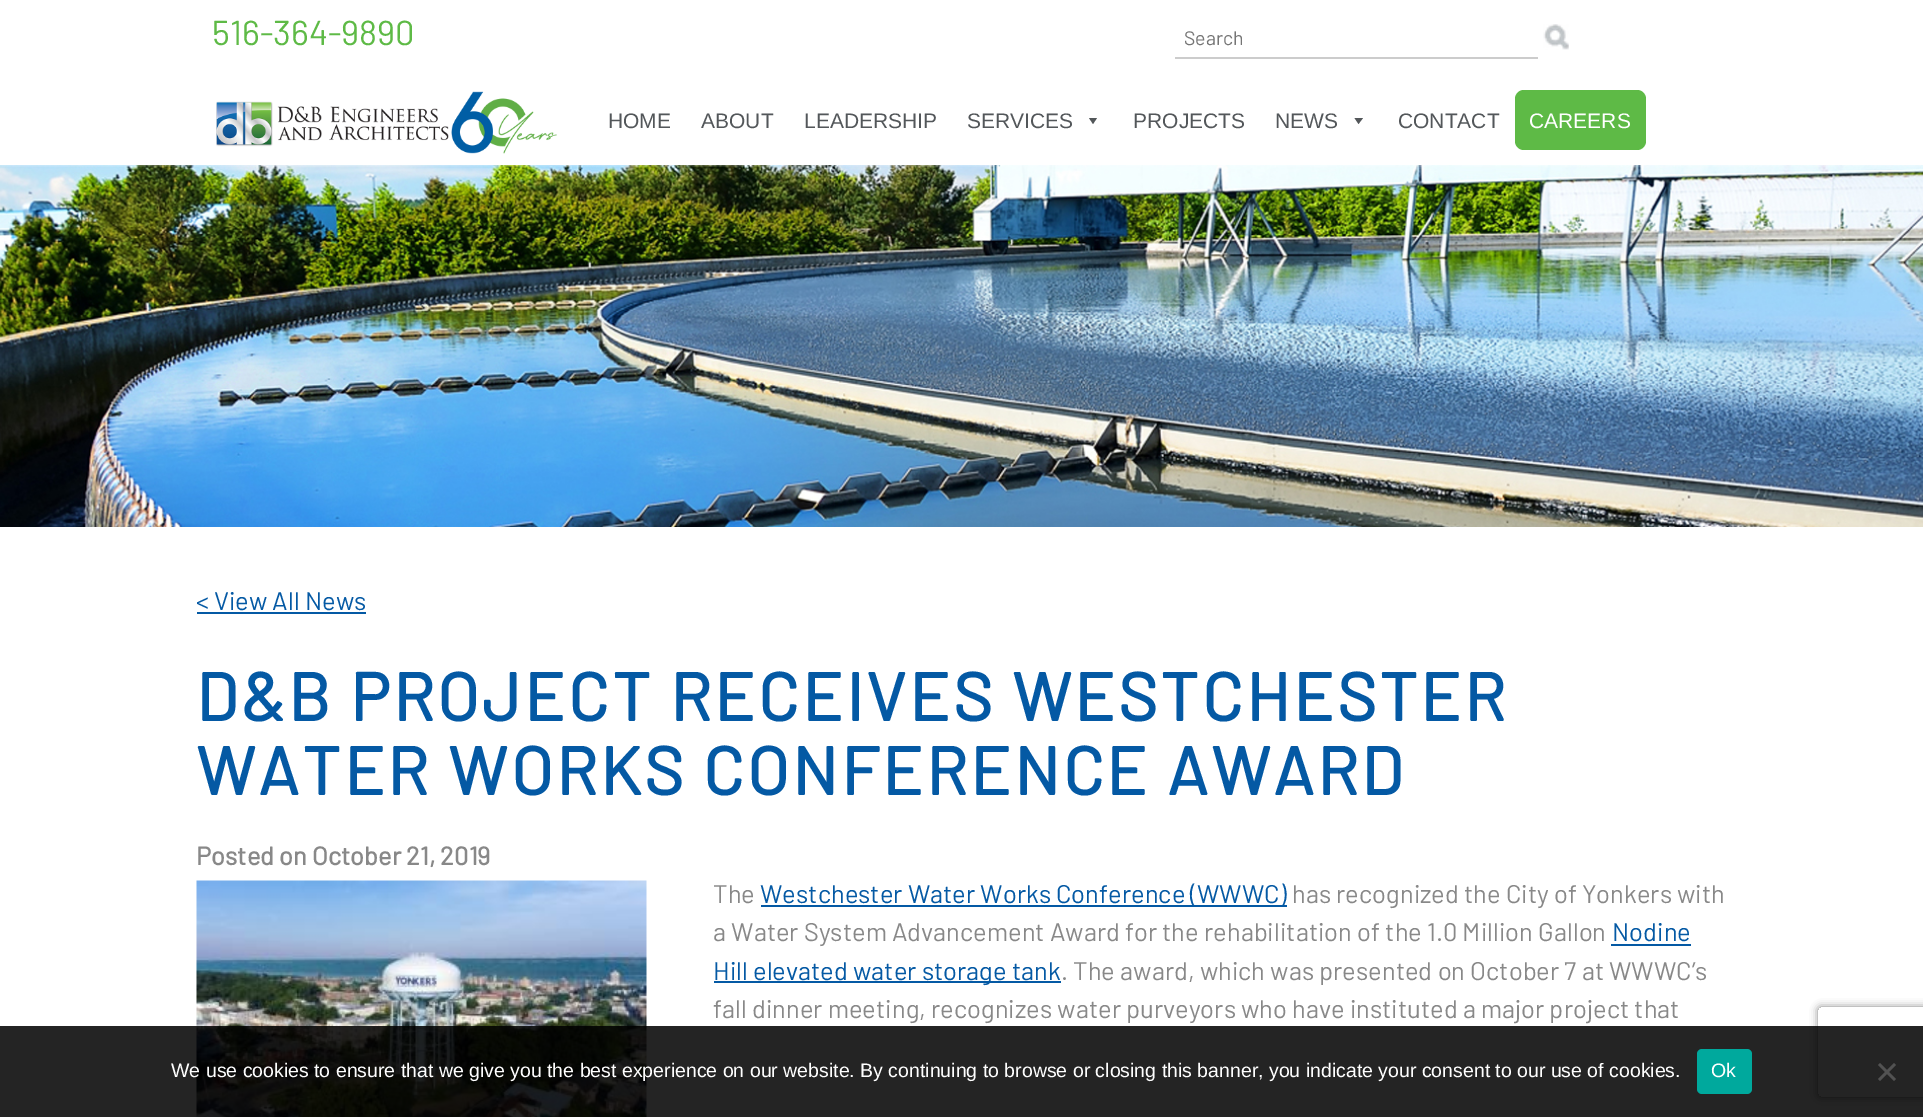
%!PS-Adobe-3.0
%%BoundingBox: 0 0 1923 1117
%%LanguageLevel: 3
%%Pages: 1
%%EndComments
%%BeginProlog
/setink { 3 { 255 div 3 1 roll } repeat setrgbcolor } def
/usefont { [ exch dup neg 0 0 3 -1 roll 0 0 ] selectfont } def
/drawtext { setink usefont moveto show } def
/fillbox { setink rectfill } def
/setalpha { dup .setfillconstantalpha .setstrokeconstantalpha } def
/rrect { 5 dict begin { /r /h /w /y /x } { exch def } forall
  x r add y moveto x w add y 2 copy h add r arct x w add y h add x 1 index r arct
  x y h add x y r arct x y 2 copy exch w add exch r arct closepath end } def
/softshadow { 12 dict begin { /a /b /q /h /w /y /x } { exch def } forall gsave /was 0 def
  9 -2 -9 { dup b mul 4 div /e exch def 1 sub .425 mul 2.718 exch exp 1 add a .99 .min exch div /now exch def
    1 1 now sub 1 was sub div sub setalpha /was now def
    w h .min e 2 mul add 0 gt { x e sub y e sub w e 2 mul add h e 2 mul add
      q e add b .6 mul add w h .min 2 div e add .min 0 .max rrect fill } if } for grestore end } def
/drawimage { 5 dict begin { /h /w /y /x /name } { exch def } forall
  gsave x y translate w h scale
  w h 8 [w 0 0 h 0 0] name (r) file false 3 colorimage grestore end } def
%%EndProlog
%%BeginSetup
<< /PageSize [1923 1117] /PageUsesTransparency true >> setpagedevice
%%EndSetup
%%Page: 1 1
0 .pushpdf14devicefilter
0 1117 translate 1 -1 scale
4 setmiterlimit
0 0 1923 1117 255 255 255 fillbox
(516-364-9890) 212 45 /Barlow-Regular 34.5 94 186 70 drawtext
1175 57 363 2 204 204 204 fillbox
(Search) 1184 45 /Barlow-Regular 19.5 117 117 117 drawtext
(assets/img1.rgb) 1543 24 26 26 drawimage
(assets/img2.rgb) 216 91 341 63 drawimage
(HOME) 608 128 /LiberationSans-Regular 21 83 87 90 drawtext
(ABOUT) 701 128 /LiberationSans-Regular 21 83 87 90 drawtext
(LEADERSHIP) 804 128 /LiberationSans-Regular 21 83 87 90 drawtext
(SERVICES) 967 128 /LiberationSans-Regular 21 83 87 90 drawtext
1097 118 moveto 1093 124 lineto 1089 118 lineto closepath fill
(PROJECTS) 1133 128 /LiberationSans-Regular 21 83 87 90 drawtext
(NEWS) 1275 128 /LiberationSans-Regular 21 83 87 90 drawtext
1363 118 moveto 1358.5 124 lineto 1354.5 118 lineto closepath fill
(CONTACT) 1398 128 /LiberationSans-Regular 21 83 87 90 drawtext
94 186 70 setink
1515 90 131 60 9 rrect fill
(CAREERS) 1529 128 /LiberationSans-Regular 21 255 255 255 drawtext
(assets/img3.rgb) 0 165 1923 362 drawimage
(< View All News) 196 610 /Barlow-Regular 25.5 4 89 164 drawtext
197 612 169 2 4 89 164 fillbox
/Barlow-Bold 67.5 usefont
196 721 moveto 3 0 (D&B PROJECT RECEIVES WESTCHESTER) ashow
196 795 moveto 3 0 (WATER WORKS CONFERENCE AWARD) ashow
(Posted on October 21, 2019) 196 865 /Barlow-Bold 25.5 136 136 136 drawtext
(assets/img4.rgb) 196 880 451 237 drawimage
(The) 713 903 /Barlow-Regular 25.5 136 136 136 drawtext
761 905 526 2 4 89 164 fillbox
(Westchester Water Works Conference \(WWWC\)) 760 903 /Barlow-Regular 25.5 4 89 164 drawtext
(has recognized the City of Yonkers with) 1292 903 /Barlow-Regular 25.5 136 136 136 drawtext
(a Water System Advancement Award for the rehabilitation of the 1.0 Million Gallon) 713 941 /Barlow-Regular 25.5 136 136 136 drawtext
(Nodine) 1612 941 /Barlow-Regular 25.5 4 89 164 drawtext
1611 944 80 2 4 89 164 fillbox
714 981 347 2 4 89 164 fillbox
(Hill elevated water storage tank) 713 980 /Barlow-Regular 25.5 4 89 164 drawtext
(. The award, which was presented on October 7 at WWWC’s) 1061 980 /Barlow-Regular 25.5 136 136 136 drawtext
(fall dinner meeting, recognizes water purveyors who have instituted a major project that) 713 1018 /Barlow-Regular 25.5 136 136 136 drawtext
gsave
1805 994 moveto 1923 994 lineto 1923 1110 lineto 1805 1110 lineto closepath 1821 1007 moveto 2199 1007 lineto 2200.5 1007 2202 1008.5 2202 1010 curveto 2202 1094 lineto 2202 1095.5 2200.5 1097 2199 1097 curveto 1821 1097 lineto 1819.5 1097 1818 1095.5 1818 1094 curveto 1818 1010 lineto 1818 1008.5 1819.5 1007 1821 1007 curveto closepath eoclip newpath
128 128 128 setink
1818 1007 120 90 3 4 1 softshadow
grestore
0.86 setalpha
0 1026 1923 91 0 0 0 fillbox
1 setalpha
(We use cookies to ensure that we give you the best experience on our website. By continuing to browse or closing this banner, you indicate your consent to our use of cookies.) 171 1077 /LiberationSans-Regular 19.5 255 255 255 drawtext
0 169 157 setink
1697 1049 55 45 5 rrect fill
(Ok) 1711 1077 /LiberationSans-Regular 19.5 255 255 255 drawtext
82 82 82 setink
1894 1063 moveto 1896 1065 lineto 1880 1081 lineto 1878 1079 lineto closepath fill
1878 1065 moveto 1880 1063 lineto 1896 1079 lineto 1894 1081 lineto closepath fill
.poppdf14devicefilter showpage
%%EOF
